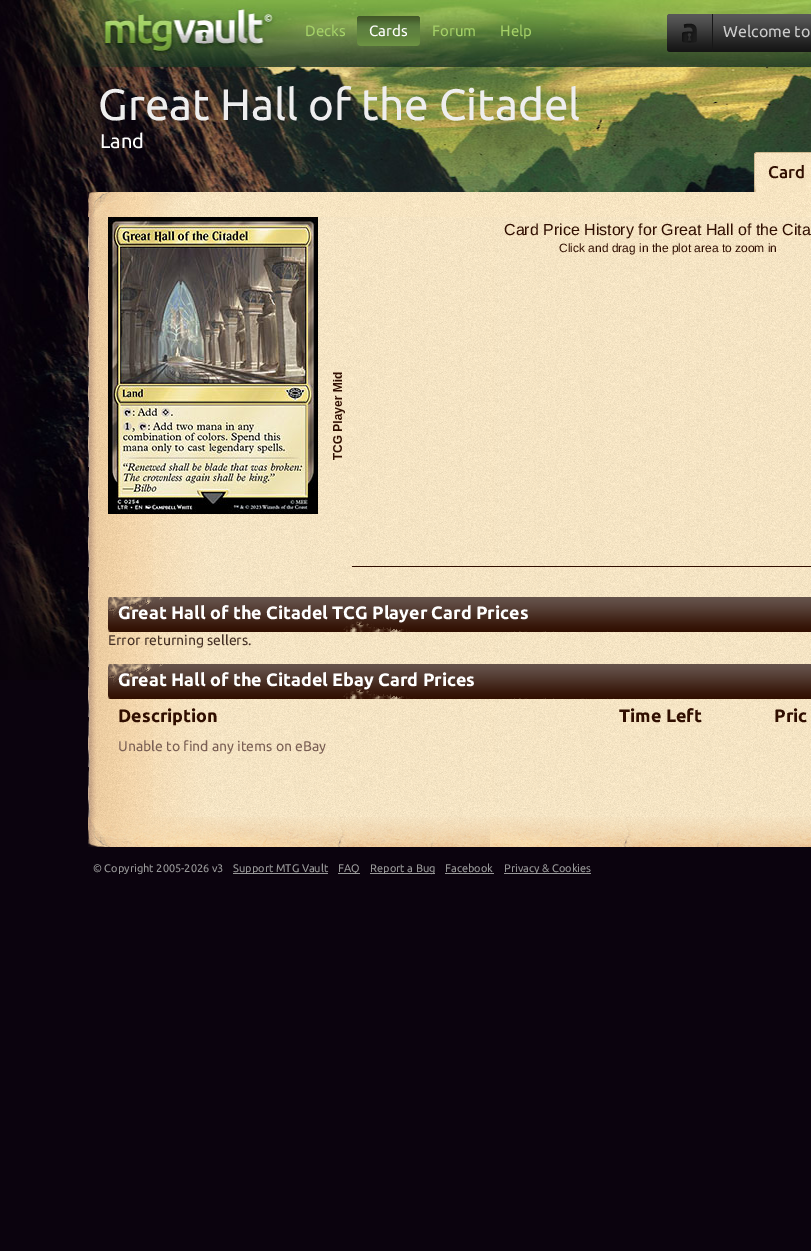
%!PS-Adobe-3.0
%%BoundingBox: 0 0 811 1251
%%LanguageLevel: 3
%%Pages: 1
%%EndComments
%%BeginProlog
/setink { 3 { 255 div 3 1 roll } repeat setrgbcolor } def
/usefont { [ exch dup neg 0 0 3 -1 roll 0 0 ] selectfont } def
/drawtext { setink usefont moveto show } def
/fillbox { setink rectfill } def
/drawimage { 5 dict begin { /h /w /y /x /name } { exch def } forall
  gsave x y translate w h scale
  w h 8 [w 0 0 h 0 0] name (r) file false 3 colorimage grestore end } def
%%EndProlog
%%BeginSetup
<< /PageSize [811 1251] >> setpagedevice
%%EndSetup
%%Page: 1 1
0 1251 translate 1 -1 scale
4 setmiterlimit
0 0 811 1251 11 3 14 fillbox
(assets/img1.rgb) 0 0 811 680 drawimage
(Decks) 305 36 /Ubuntu-Regular 15 165 209 104 drawtext
(assets/img2.rgb) 357 16 63 30 drawimage
(Cards) 369 36 /Ubuntu-Regular 15 255 255 255 drawtext
(Forum) 432 36 /Ubuntu-Regular 15 165 209 104 drawtext
(Help) 500 36 /Ubuntu-Regular 15 165 209 104 drawtext
(assets/img3.rgb) 667 14 144 38 drawimage
712 14 1 38 23 23 23 fillbox
(assets/img4.rgb) 682 23 15 20 drawimage
(Welcome to) 723 37 /Ubuntu-Regular 16 204 204 204 drawtext
(Great Hall of the Citadel) 98 120 /Ubuntu-Regular 44 238 238 238 drawtext
(Land) 100 148 /Ubuntu-Regular 20 255 255 255 drawtext
(assets/img5.rgb) 754 152 2 40 drawimage
(assets/img6.rgb) 756 152 55 40 drawimage
(Card) 768 178 /Ubuntu-Medium 17 48 14 0 drawtext
(assets/img7.rgb) 88 192 723 25 drawimage
(assets/img8.rgb) 88 217 723 600 drawimage
(assets/img9.rgb) 108 217 210 297 drawimage
(Card Price History for Great Hall of the Cita) 504 235 /LiberationSans-Regular 16 48 14 0 drawtext
(Click and drag in the plot area to zoom in) 559 252 /LiberationSans-Regular 12 48 14 0 drawtext
(assets/img10.rgb) 108 597 703 35 drawimage
(Great Hall of the Citadel TCG Player Card Prices) 118 619 /Ubuntu-Bold 18 255 255 255 drawtext
(Error returning sellers.) 108 645 /Ubuntu-Regular 14 69 48 37 drawtext
(assets/img10.rgb) 108 664 703 35 drawimage
(Great Hall of the Citadel Ebay Card Prices) 118 686 /Ubuntu-Bold 18 255 255 255 drawtext
(Description) 118 722 /Ubuntu-Bold 18 48 14 0 drawtext
(Time Left) 619 722 /Ubuntu-Bold 18 48 14 0 drawtext
(Pric) 774 722 /Ubuntu-Bold 18 48 14 0 drawtext
(Unable to find any items on eBay) 118 751 /Ubuntu-Regular 14 122 95 84 drawtext
(assets/img11.rgb) 88 817 723 30 drawimage
(© Copyright 2005-2026 v3) 93 872 /Ubuntu-Regular 11 153 153 153 drawtext
233 873 95 1 153 153 153 fillbox
(Support MTG Vault) 233 872 /Ubuntu-Regular 11 153 153 153 drawtext
338 873 22 1 153 153 153 fillbox
(FAQ) 338 872 /Ubuntu-Regular 11 153 153 153 drawtext
370 873 65 1 153 153 153 fillbox
(Report a Bug) 370 872 /Ubuntu-Regular 11 153 153 153 drawtext
(Facebook) 445 872 /Ubuntu-Regular 11 153 153 153 drawtext
445 873 49 1 153 153 153 fillbox
504 873 87 1 153 153 153 fillbox
(Privacy & Cookies) 504 872 /Ubuntu-Regular 11 153 153 153 drawtext
showpage
%%EOF
